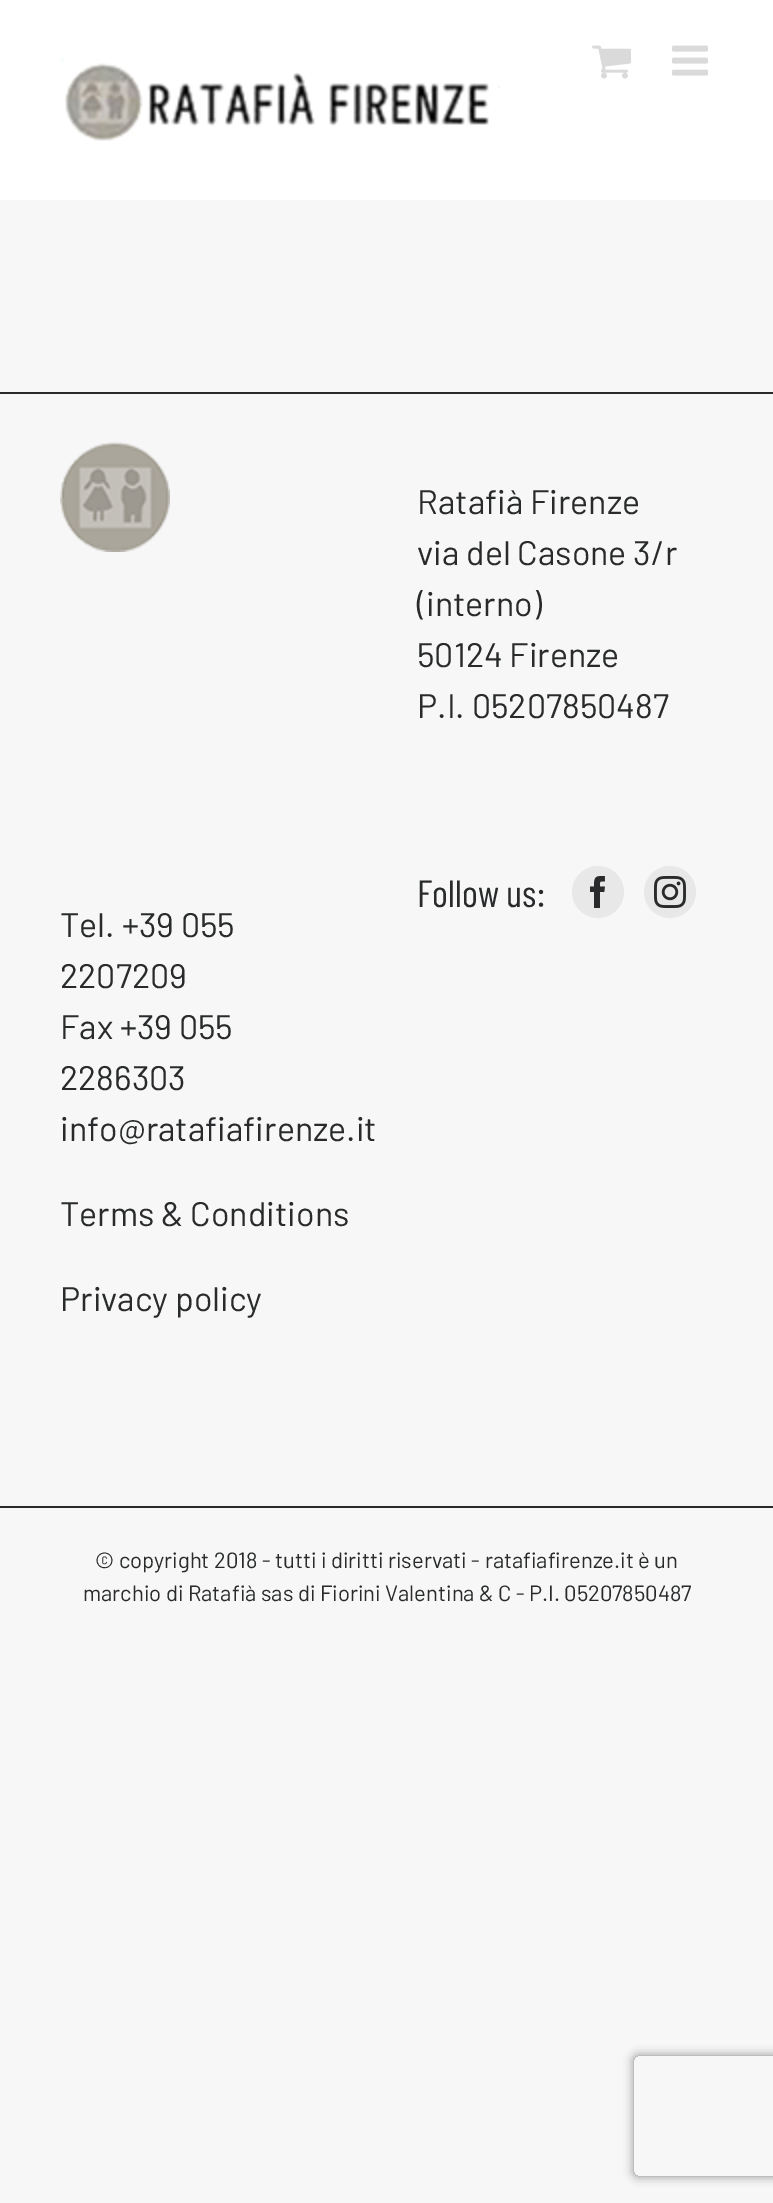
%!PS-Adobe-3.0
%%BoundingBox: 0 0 773 2203
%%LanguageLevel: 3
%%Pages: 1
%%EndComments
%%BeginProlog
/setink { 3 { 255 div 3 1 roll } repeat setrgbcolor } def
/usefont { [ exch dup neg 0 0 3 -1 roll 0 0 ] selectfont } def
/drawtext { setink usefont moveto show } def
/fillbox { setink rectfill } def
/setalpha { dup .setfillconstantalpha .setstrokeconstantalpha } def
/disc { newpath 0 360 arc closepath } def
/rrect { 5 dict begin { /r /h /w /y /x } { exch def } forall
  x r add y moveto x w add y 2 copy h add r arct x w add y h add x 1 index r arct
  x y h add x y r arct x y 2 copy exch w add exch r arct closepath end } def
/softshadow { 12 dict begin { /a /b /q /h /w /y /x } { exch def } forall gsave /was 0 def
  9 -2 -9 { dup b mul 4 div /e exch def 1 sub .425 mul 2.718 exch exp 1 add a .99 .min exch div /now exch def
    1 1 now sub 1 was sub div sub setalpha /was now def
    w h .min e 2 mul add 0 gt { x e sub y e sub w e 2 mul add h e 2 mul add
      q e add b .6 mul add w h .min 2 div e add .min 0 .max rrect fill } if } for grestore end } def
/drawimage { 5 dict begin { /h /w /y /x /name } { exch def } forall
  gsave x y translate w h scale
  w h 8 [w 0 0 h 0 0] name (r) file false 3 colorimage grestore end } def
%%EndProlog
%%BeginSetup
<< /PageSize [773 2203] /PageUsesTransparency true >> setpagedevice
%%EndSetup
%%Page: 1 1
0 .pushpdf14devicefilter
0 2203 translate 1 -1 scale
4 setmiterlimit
0 0 773 2203 247 247 247 fillbox
0 0 773 200 255 255 255 fillbox
(assets/img1.rgb) 60 58 440 83 drawimage
(assets/img2.rgb) 592 45 39 34 drawimage
(assets/img3.rgb) 672 45 36 31 drawimage
0 392 773 2 40 42 43 fillbox
(assets/img4.rgb) 60 442 110 110 drawimage
(Ratafià Firenze) 417 514 /Barlow-Regular 34 40 42 43 drawtext
(via del Casone 3/r) 417 565 /Barlow-Regular 34 40 42 43 drawtext
(\(interno\)) 417 616 /Barlow-Regular 34 40 42 43 drawtext
(50124 Firenze) 417 667 /Barlow-Regular 34 40 42 43 drawtext
(P.I. 05207850487) 417 718 /Barlow-Regular 34 40 42 43 drawtext
(Follow us:) 417 907 /BarlowCondensed-Regular 38 40 42 43 drawtext
232 232 232 setink
598 892 25 disc gsave fill grestore
2 setlinewidth
stroke
(assets/img5.rgb) 590 876 15 32 drawimage
670 892 25 disc gsave fill grestore
stroke
(assets/img6.rgb) 654 876 32 32 drawimage
(Tel. +39 055) 60 937 /Barlow-Regular 34 40 42 43 drawtext
(2207209) 60 988 /Barlow-Regular 34 40 42 43 drawtext
(Fax +39 055) 60 1039 /Barlow-Regular 34 40 42 43 drawtext
(2286303) 60 1090 /Barlow-Regular 34 40 42 43 drawtext
(info@ratafiafirenze.it) 60 1141 /Barlow-Regular 34 40 42 43 drawtext
(Terms & Conditions) 60 1226 /Barlow-Regular 34 40 42 43 drawtext
(Privacy policy) 60 1311 /Barlow-Regular 34 40 42 43 drawtext
0 1506 773 2 40 42 43 fillbox
(© copyright 2018 - tutti i diritti riservati - ratafiafirenze.it è un) 95 1568 /Barlow-Regular 22 40 42 43 drawtext
(marchio di Ratafià sas di Fiorini Valentina & C - P.I. 05207850487) 83 1601 /Barlow-Regular 22 40 42 43 drawtext
gsave
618 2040 moveto 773 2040 lineto 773 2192 lineto 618 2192 lineto closepath 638 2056 moveto 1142 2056 lineto 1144 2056 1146 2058 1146 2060 curveto 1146 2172 lineto 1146 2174 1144 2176 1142 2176 curveto 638 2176 lineto 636 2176 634 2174 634 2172 curveto 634 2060 lineto 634 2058 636 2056 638 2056 curveto closepath eoclip newpath
128 128 128 setink
634 2056 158 120 4 5 1 softshadow
grestore
.poppdf14devicefilter showpage
%%EOF
